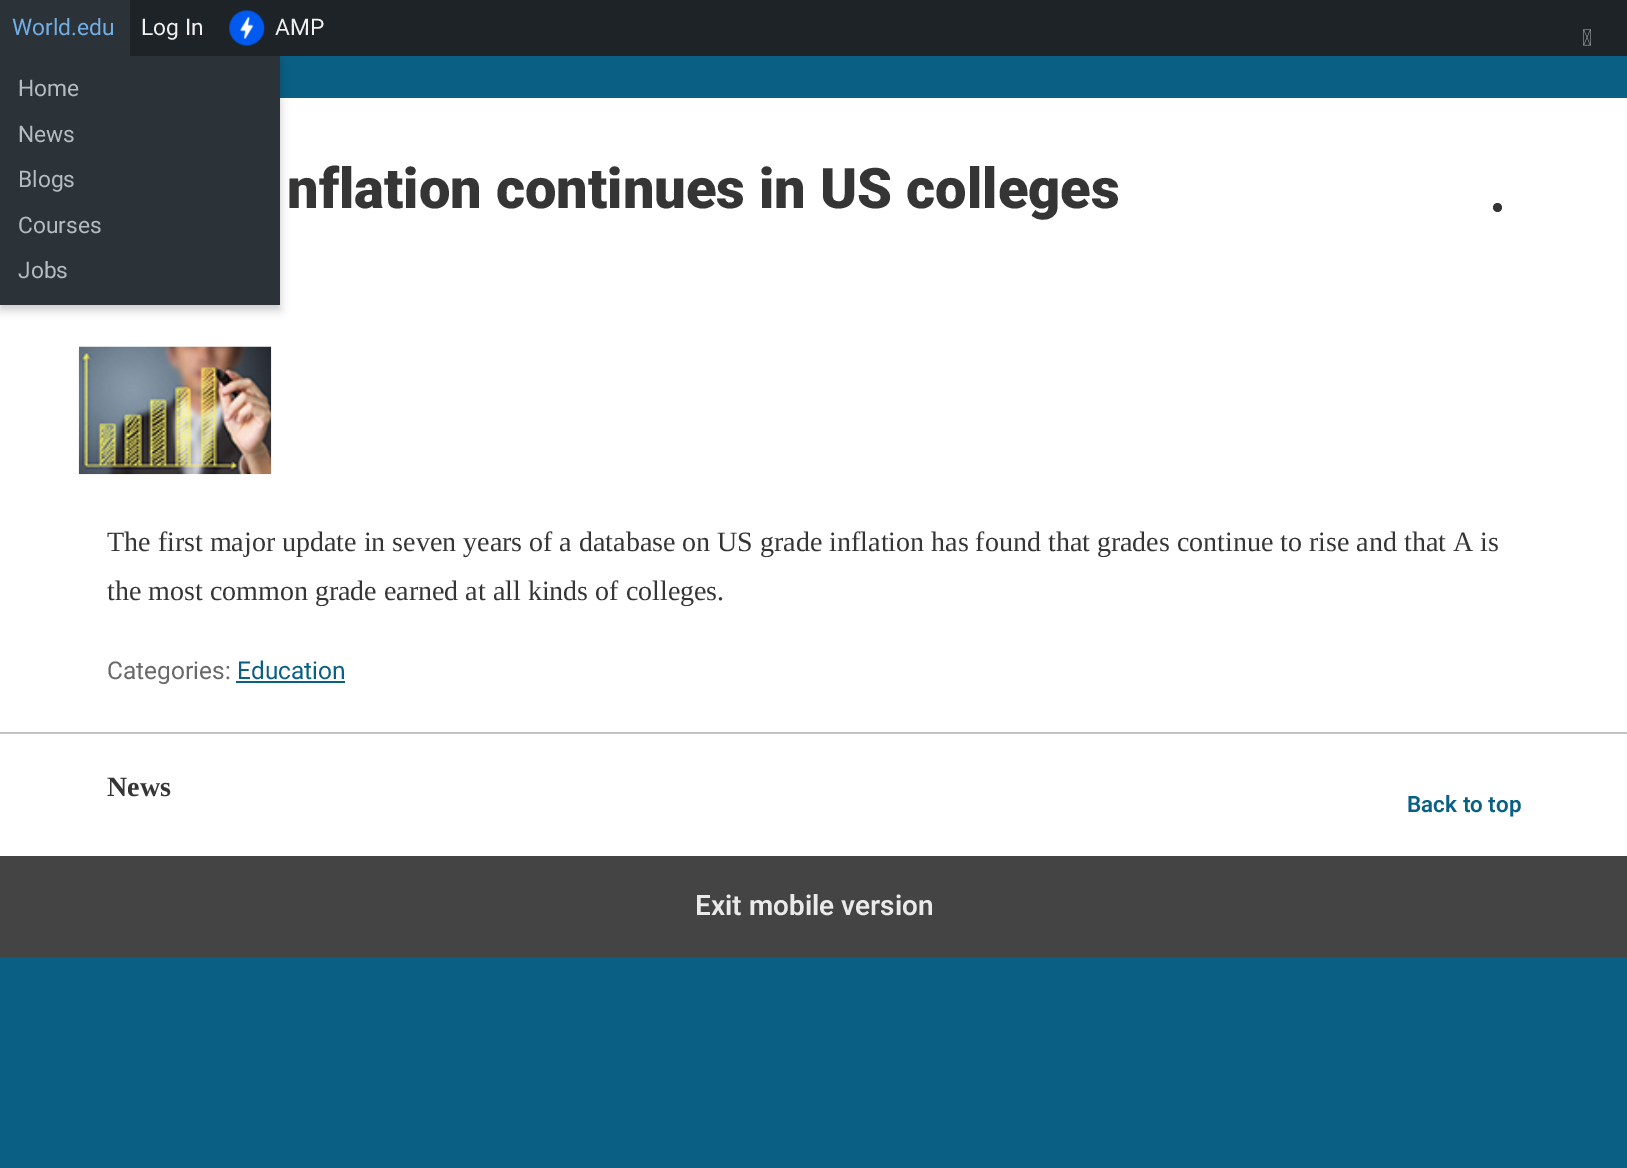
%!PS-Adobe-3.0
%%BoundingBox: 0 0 1627 1168
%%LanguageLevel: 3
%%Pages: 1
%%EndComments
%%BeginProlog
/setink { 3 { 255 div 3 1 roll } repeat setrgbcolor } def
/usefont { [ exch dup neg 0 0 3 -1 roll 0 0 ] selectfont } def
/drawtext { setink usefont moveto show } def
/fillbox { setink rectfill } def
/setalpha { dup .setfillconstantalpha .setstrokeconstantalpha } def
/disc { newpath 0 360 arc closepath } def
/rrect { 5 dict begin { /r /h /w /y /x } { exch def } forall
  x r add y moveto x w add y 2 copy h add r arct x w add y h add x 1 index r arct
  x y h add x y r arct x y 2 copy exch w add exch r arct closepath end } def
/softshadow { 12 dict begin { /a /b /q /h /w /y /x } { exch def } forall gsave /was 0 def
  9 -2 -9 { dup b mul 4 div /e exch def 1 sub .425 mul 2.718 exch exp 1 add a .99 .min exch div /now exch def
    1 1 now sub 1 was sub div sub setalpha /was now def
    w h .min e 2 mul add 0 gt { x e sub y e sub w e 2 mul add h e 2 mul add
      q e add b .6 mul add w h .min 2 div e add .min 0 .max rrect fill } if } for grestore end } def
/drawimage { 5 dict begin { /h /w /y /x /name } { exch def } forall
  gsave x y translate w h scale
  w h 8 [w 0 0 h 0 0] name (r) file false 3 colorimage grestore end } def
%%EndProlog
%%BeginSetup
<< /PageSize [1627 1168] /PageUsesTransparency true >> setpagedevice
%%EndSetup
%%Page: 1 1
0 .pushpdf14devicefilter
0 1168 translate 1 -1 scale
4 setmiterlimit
0 0 1627 1168 10 95 133 fillbox
0 98 1627 758 255 255 255 fillbox
130 0 1497 56 29 35 39 fillbox
0 0 130 56 44 51 56 fillbox
(World.edu) 12 35 /Roboto-Regular 22.75 114 174 230 drawtext
0 0 0 setink
0 61 280 249 0 4.5 0.2 softshadow
0 56 280 249 44 51 56 fillbox
(Home) 18 96 /Roboto-Regular 22.75 181 188 193 drawtext
(News) 18 142 /Roboto-Regular 22.75 181 188 193 drawtext
(Blogs) 18 187 /Roboto-Regular 22.75 181 188 193 drawtext
(Courses) 18 233 /Roboto-Regular 22.75 181 188 193 drawtext
(Jobs) 18 278 /Roboto-Regular 22.75 181 188 193 drawtext
(Log In) 141 35 /Roboto-Regular 22.75 240 240 241 drawtext
(assets/img1.rgb) 229 10 36 36 drawimage
(AMP) 275 35 /Roboto-Regular 22.75 240 240 241 drawtext
(assets/img2.rgb) 1583 29 8 17 drawimage
(nflation continues in US colleges) 287 208 /Roboto-Black 56 53 53 53 drawtext
1497.5 207.5 4.5 disc fill
(assets/img3.rgb) 78 346 194 129 drawimage
(The first major update in seven years of a database on US grade inflation has found that grades continue to rise and that A is) 107 551 /LiberationSerif-Regular 28 53 53 53 drawtext
(the most common grade earned at all kinds of colleges.) 107 600 /LiberationSerif-Regular 28 53 53 53 drawtext
(Categories:) 107 679 /Roboto-Regular 24.5 105 105 105 drawtext
(Education) 237 679 /Roboto-Regular 24.5 10 95 133 drawtext
236 681 109 2 10 95 133 fillbox
0 732 1627 2 194 194 194 fillbox
(News) 107 796 /LiberationSerif-Bold 28 53 53 53 drawtext
(Back to top) 1407 812 /Roboto-SemiBold 22.5 10 95 133 drawtext
0 856 1627 101 68 68 68 fillbox
(Exit mobile version) 695 915 /Roboto-SemiBold 28 234 234 234 drawtext
.poppdf14devicefilter showpage
%%EOF
